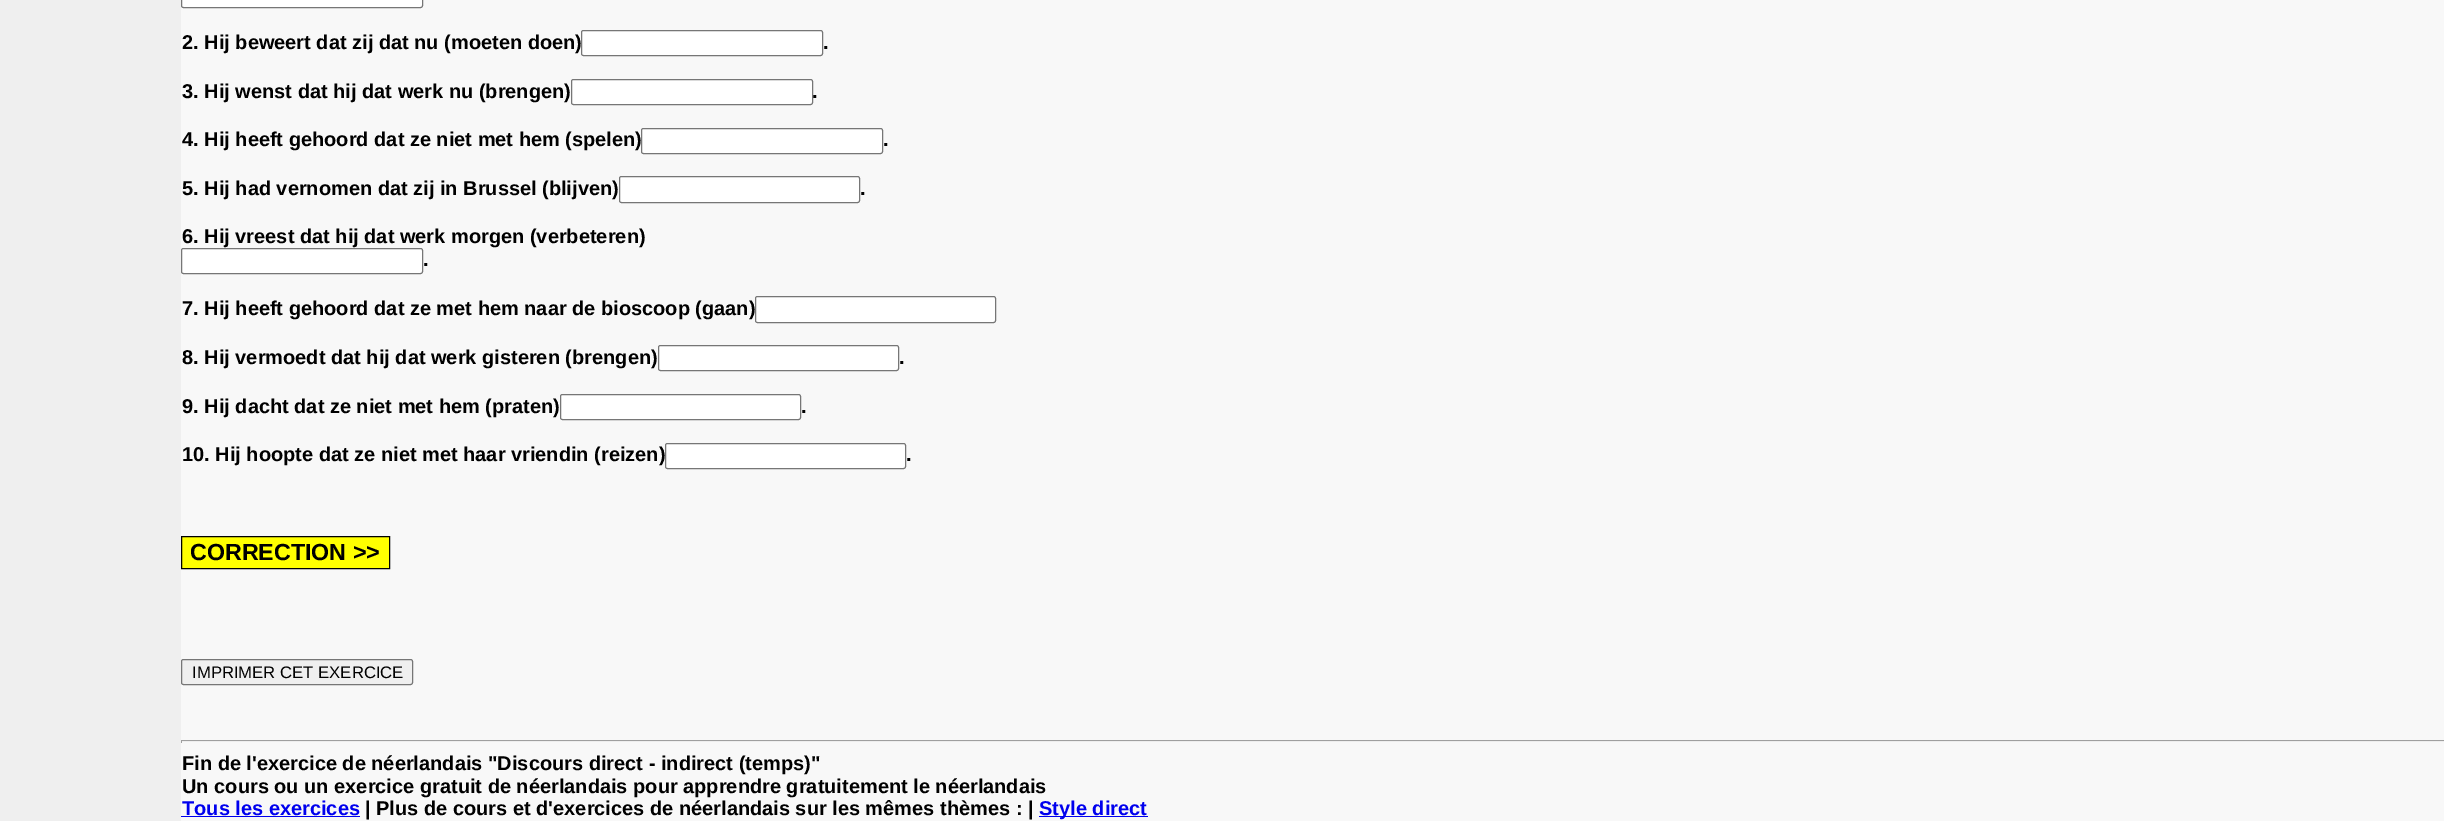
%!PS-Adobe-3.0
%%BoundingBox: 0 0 2444 821
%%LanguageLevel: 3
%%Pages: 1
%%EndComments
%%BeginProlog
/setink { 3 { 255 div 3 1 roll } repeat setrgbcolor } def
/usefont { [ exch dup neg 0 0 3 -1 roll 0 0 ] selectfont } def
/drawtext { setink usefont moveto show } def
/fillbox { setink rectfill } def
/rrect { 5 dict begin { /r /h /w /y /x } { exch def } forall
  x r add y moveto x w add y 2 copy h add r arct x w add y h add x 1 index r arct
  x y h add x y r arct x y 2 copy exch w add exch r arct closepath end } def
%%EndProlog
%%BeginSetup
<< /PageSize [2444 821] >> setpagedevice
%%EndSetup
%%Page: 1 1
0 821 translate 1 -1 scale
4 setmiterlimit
0 0 2444 821 239 239 239 fillbox
181 0 2263 821 248 248 248 fillbox
255 255 255 setink
181.5 -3.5 241 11 2 rrect gsave fill grestore
118 118 118 setink
stroke
(2. Hij beweert dat zij dat nu \(moeten doen\)) 182 49 /LiberationSans-Bold 20 0 0 0 drawtext
255 255 255 setink
581.5 30.5 241 25 2 rrect gsave fill grestore
118 118 118 setink
stroke
(.) 823 49 /LiberationSans-Bold 20 0 0 0 drawtext
(3. Hij wenst dat hij dat werk nu \(brengen\)) 182 98 /LiberationSans-Bold 20 0 0 0 drawtext
255 255 255 setink
571.5 79.5 241 25 2 rrect gsave fill grestore
118 118 118 setink
stroke
(.) 812 98 /LiberationSans-Bold 20 0 0 0 drawtext
(4. Hij heeft gehoord dat ze niet met hem \(spelen\)) 182 146 /LiberationSans-Bold 20 0 0 0 drawtext
255 255 255 setink
641.5 128.5 241 25 2 rrect gsave fill grestore
118 118 118 setink
stroke
(.) 883 146 /LiberationSans-Bold 20 0 0 0 drawtext
(5. Hij had vernomen dat zij in Brussel \(blijven\)) 182 195 /LiberationSans-Bold 20 0 0 0 drawtext
255 255 255 setink
619.5 176.5 240 26 2 rrect gsave fill grestore
118 118 118 setink
stroke
(.) 860 195 /LiberationSans-Bold 20 0 0 0 drawtext
(6. Hij vreest dat hij dat werk morgen \(verbeteren\)) 182 243 /LiberationSans-Bold 20 0 0 0 drawtext
255 255 255 setink
181.5 248.5 241 25 2 rrect gsave fill grestore
118 118 118 setink
stroke
(.) 423 266 /LiberationSans-Bold 20 0 0 0 drawtext
(7. Hij heeft gehoord dat ze met hem naar de bioscoop \(gaan\)) 182 315 /LiberationSans-Bold 20 0 0 0 drawtext
255 255 255 setink
755.5 296.5 240 26 2 rrect gsave fill grestore
118 118 118 setink
stroke
(8. Hij vermoedt dat hij dat werk gisteren \(brengen\)) 182 364 /LiberationSans-Bold 20 0 0 0 drawtext
255 255 255 setink
658.5 345.5 240 25 2 rrect gsave fill grestore
118 118 118 setink
stroke
(.) 899 364 /LiberationSans-Bold 20 0 0 0 drawtext
(9. Hij dacht dat ze niet met hem \(praten\)) 182 413 /LiberationSans-Bold 20 0 0 0 drawtext
255 255 255 setink
560.5 394.5 240 25 2 rrect gsave fill grestore
118 118 118 setink
stroke
(.) 801 413 /LiberationSans-Bold 20 0 0 0 drawtext
(10. Hij hoopte dat ze niet met haar vriendin \(reizen\)) 182 461 /LiberationSans-Bold 20 0 0 0 drawtext
255 255 255 setink
665.5 443.5 240 25 2 rrect gsave fill grestore
118 118 118 setink
stroke
(.) 906 461 /LiberationSans-Bold 20 0 0 0 drawtext
255 255 0 setink
181.5 536.5 moveto 389.5 536.5 lineto 389.5 568.5 lineto 181.5 568.5 lineto closepath gsave fill grestore
0 0 0 setink
stroke
(CORRECTION >>) 190 560 /LiberationSans-Bold 23.25 0 0 0 drawtext
239 239 239 setink
181.5 659.5 231 25 2 rrect gsave fill grestore
118 118 118 setink
stroke
(IMPRIMER CET EXERCICE) 192 678 /LiberationSans-Regular 16.7 0 0 0 drawtext
181 740 2263 1 159 159 159 fillbox
181 741 2263 1 238 238 238 fillbox
181 740 1 3 159 159 159 fillbox
(Fin de l'exercice de néerlandais "Discours direct - indirect \(temps\)") 182 770 /LiberationSans-Bold 20 0 0 0 drawtext
(Un cours ou un exercice gratuit de néerlandais pour apprendre gratuitement le néerlandais) 182 793 /LiberationSans-Bold 20 0 0 0 drawtext
(Tous les exercices) 182 815 /LiberationSans-Bold 20 0 0 238 drawtext
181 816 179 1 0 0 238 fillbox
(| Plus de cours et d'exercices de néerlandais sur les mêmes thèmes : |) 365 815 /LiberationSans-Bold 20 0 0 0 drawtext
1039 816 109 1 0 0 238 fillbox
(Style direct) 1039 815 /LiberationSans-Bold 20 0 0 238 drawtext
showpage
%%EOF
